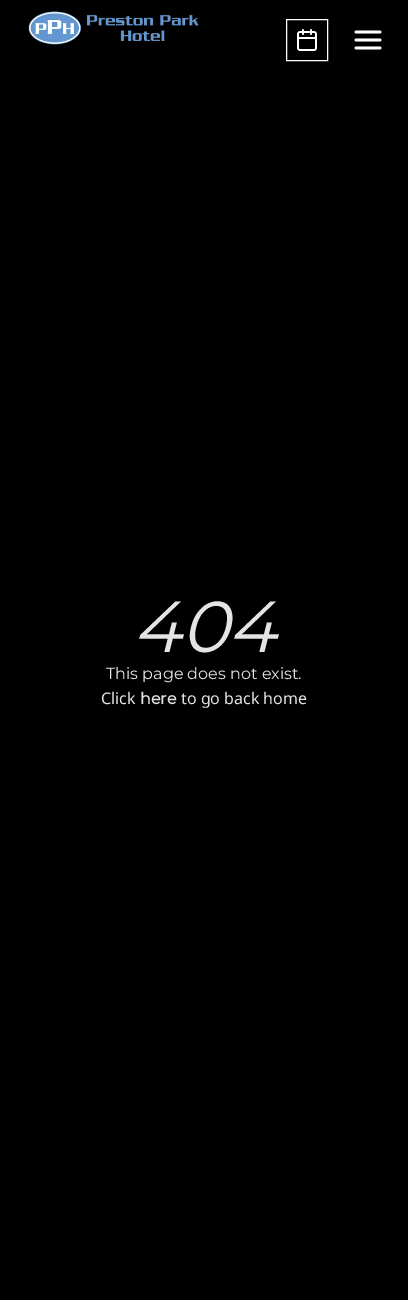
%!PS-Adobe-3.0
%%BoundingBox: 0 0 408 1300
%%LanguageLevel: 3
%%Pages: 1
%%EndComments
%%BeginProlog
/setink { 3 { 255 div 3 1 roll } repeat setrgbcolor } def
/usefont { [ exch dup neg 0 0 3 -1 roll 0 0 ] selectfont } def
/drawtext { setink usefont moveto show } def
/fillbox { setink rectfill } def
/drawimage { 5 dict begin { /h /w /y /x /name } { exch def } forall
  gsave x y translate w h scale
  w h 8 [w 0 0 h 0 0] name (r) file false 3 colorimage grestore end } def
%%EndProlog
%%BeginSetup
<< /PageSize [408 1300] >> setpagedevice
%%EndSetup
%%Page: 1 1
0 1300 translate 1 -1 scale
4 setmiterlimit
0 0 408 1300 0 0 0 fillbox
(assets/img1.rgb) 28 11 171 34 drawimage
255 255 255 setink
286.5 19.5 41 41 rectstroke
(assets/img2.rgb) 297 29 20 22 drawimage
2.7 setlinewidth
1 setlinecap
1 setlinejoin
356 40 moveto 380 40 lineto 356 32 moveto 380 32 lineto 356 48 moveto 380 48 lineto stroke
(404) 133 652 /Montserrat-Italic 72 228 228 231 drawtext
(This page does not exist.) 106 679 /Montserrat-Regular 16 228 228 231 drawtext
(Click) 101 704 /NotoSans-Regular 16 228 228 231 drawtext
(here) 140 704 /Montserrat-Bold 16 228 228 231 drawtext
(to go back home) 181 704 /NotoSans-Regular 16 228 228 231 drawtext
showpage
%%EOF
